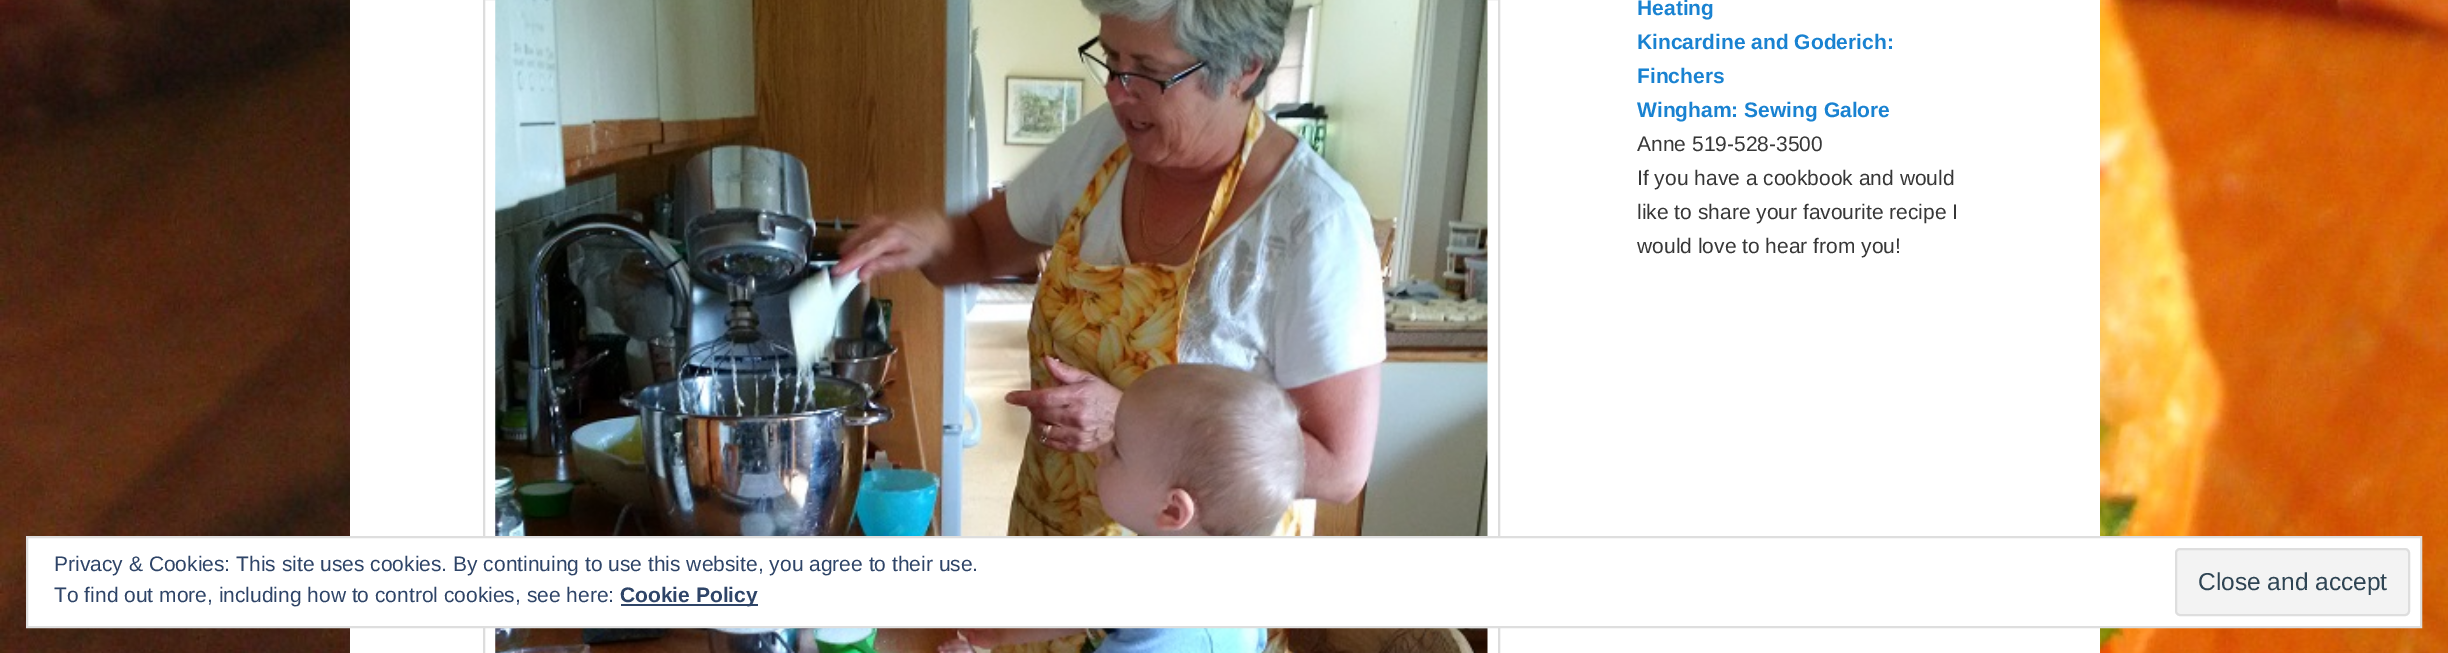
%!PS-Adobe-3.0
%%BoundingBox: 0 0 2448 653
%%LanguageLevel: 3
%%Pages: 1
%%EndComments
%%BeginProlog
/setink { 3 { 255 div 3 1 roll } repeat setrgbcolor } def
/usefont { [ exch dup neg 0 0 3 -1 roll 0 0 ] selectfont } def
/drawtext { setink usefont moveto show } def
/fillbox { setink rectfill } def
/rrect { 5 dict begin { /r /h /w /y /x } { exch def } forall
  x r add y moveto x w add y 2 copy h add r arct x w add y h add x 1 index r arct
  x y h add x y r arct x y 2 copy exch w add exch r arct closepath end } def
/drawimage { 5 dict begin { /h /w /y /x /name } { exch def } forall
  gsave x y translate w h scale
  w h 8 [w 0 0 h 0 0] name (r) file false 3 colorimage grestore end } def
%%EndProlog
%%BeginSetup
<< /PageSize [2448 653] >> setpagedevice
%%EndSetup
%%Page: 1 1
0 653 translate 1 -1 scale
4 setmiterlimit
0 0 2448 653 255 255 255 fillbox
(assets/img1.rgb) 0 0 2448 653 drawimage
350 0 1750 653 255 255 255 fillbox
221 221 221 setink
2 setlinewidth
484 -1 1015 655 rectstroke
(assets/img2.rgb) 495 0 993 653 drawimage
(Heating) 1637 15 /LiberationSans-Bold 21 25 130 209 drawtext
(Kincardine and Goderich:) 1637 49 /LiberationSans-Bold 21 25 130 209 drawtext
(Finchers) 1637 83 /LiberationSans-Bold 21 25 130 209 drawtext
(Wingham: Sewing Galore) 1637 117 /LiberationSans-Bold 21 25 130 209 drawtext
(Anne 519-528-3500) 1637 151 /LiberationSans-Regular 21 55 55 55 drawtext
(If you have a cookbook and would) 1637 185 /LiberationSans-Regular 21 55 55 55 drawtext
(like to share your favourite recipe I) 1637 219 /LiberationSans-Regular 21 55 55 55 drawtext
(would love to hear from you!) 1637 253 /LiberationSans-Regular 21 55 55 55 drawtext
255 255 255 setink
27 537 moveto 2421 537 lineto 2421 627 lineto 27 627 lineto closepath gsave fill grestore
222 222 222 setink
stroke
(Privacy & Cookies: This site uses cookies. By continuing to use this website, you agree to their use.) 54 571 /LiberationSans-Regular 21 46 68 103 drawtext
(To find out more, including how to control cookies, see here:) 54 602 /LiberationSans-Regular 21 46 68 103 drawtext
621 604 137 2 46 68 103 fillbox
(Cookie Policy) 620 602 /LiberationSans-Bold 21 46 68 103 drawtext
243 243 243 setink
2176 549 233 66 4 rrect gsave fill grestore
222 222 222 setink
stroke
(Close and accept) 2198 590 /LiberationSans-Regular 24.5 46 68 83 drawtext
showpage
%%EOF
